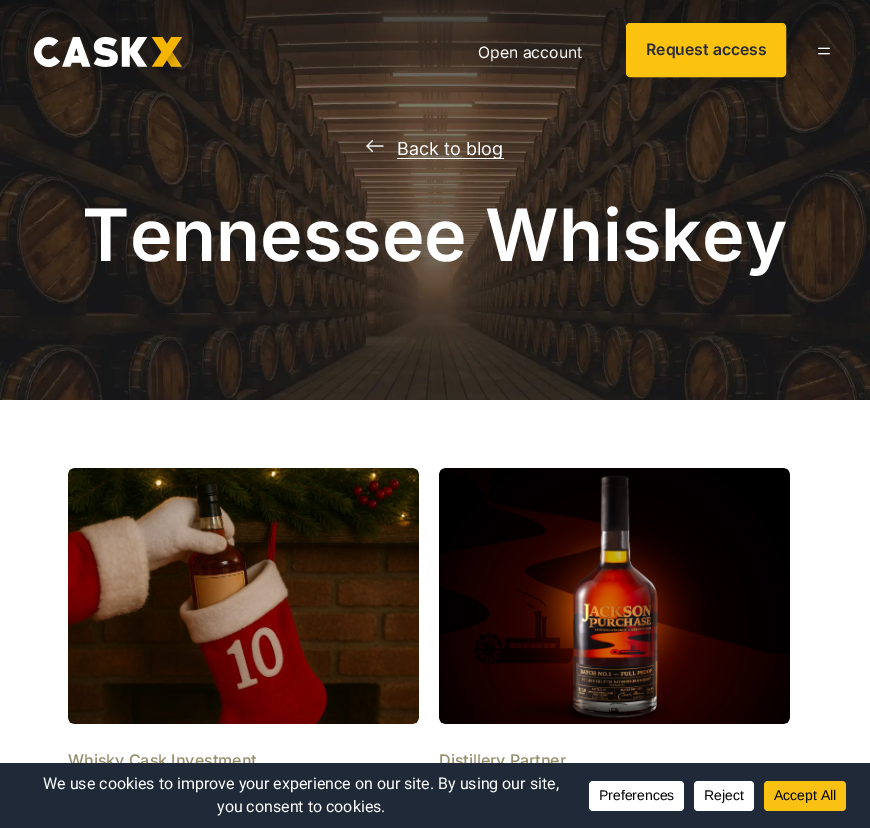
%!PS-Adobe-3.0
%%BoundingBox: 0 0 870 828
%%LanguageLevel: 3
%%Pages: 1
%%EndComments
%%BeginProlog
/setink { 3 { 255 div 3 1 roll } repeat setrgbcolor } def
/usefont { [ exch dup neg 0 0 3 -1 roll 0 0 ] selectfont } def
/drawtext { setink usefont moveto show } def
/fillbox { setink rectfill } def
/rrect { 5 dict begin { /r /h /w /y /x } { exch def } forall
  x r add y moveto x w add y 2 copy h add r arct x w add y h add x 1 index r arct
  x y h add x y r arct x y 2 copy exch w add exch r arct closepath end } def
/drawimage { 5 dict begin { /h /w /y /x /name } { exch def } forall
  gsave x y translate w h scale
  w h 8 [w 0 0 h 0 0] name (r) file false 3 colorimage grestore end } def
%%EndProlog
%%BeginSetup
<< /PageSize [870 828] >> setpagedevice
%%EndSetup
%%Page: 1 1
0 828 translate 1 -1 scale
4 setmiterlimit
0 0 870 828 255 255 255 fillbox
(assets/img3.rgb) 0 0 870 400 drawimage
(assets/img1.rgb) 34 37 148 30 drawimage
(Open account) 478 58 /Inter-Regular 15.75 255 255 255 drawtext
251 195 15 setink
626.5 23.5 159 53 3.5 rrect stroke
627 24 158 52 3 rrect fill
(Request access) 646 55 /Inter-SemiBold 15.75 40 44 50 drawtext
(assets/img2.rgb) 818 47 12 8 drawimage
(assets/img4.rgb) 366 140 18 12 drawimage
(Back to blog) 397 155 /Inter-Regular 18 255 255 255 drawtext
397 158 107 1 255 255 255 fillbox
(Tennessee Whiskey) 82 261 /Inter-SemiBold 72 255 255 255 drawtext
(assets/img5.rgb) 68 468 351 256 drawimage
(Whisky Cask Investment) 68 766 /Inter-Medium 16 149 142 107 drawtext
(assets/img6.rgb) 439 468 351 256 drawimage
(Distillery Partner) 439 766 /Inter-Medium 16 149 142 107 drawtext
0 763 870 65 31 41 55 fillbox
(We use cookies to improve your experience on our site. By using our site,) 43 789 /Roboto-Regular 16 255 255 255 drawtext
(you consent to cookies.) 217 812 /Roboto-Regular 16 255 255 255 drawtext
589 781 95 30 4 rrect fill
(Preferences) 599 800 /LiberationSans-Regular 14 0 0 0 drawtext
255 255 255 setink
694 781 60 30 4 rrect fill
(Reject) 704 800 /LiberationSans-Regular 14 0 0 0 drawtext
248 193 19 setink
764 781 82 30 4 rrect fill
(Accept All) 774 800 /LiberationSans-Regular 14 0 0 0 drawtext
showpage
%%EOF
